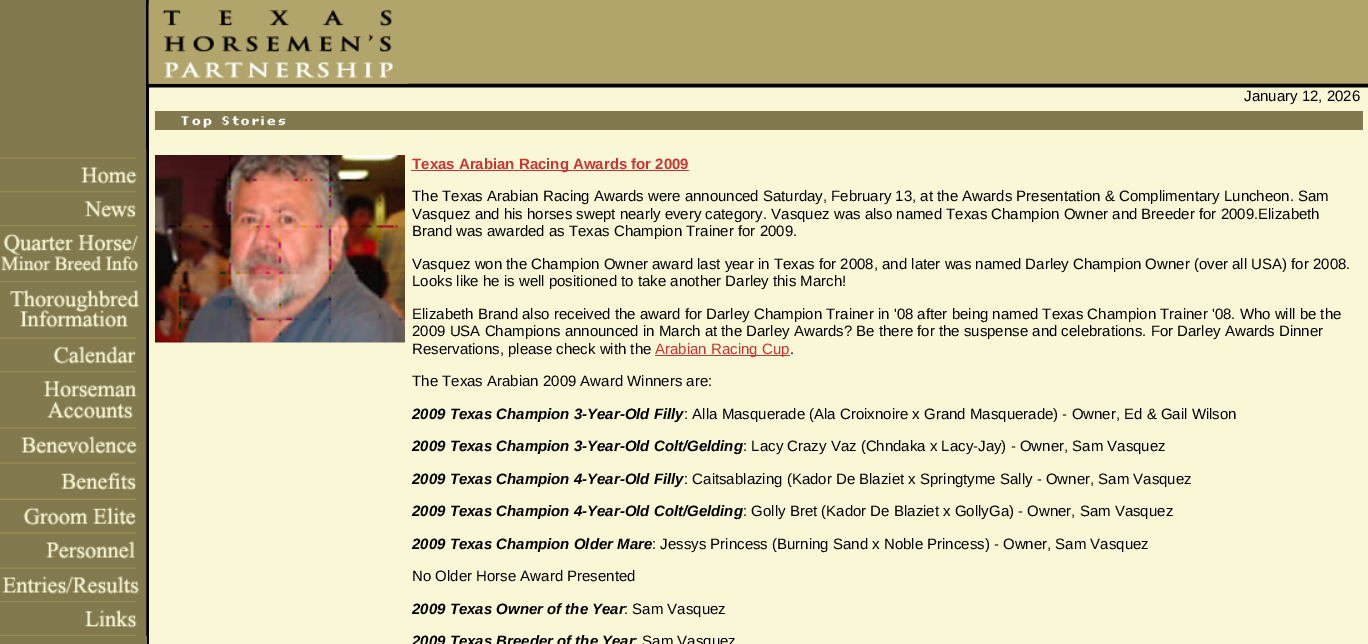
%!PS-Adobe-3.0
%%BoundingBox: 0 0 1368 644
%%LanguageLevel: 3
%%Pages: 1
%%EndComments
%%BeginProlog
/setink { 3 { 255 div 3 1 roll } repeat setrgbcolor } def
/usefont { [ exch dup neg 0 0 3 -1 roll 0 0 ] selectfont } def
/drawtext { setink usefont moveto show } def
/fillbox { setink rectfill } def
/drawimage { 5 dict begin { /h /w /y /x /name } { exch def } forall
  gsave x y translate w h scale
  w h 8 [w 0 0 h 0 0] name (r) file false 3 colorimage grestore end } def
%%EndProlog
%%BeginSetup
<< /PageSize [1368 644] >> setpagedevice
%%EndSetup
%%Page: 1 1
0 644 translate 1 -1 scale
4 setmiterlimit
0 0 1368 644 249 247 213 fillbox
0 0 146 603 130 121 79 fillbox
146 0 3 644 0 0 0 fillbox
(assets/img1.rgb) 0 148 147 11 drawimage
(assets/img2.rgb) 0 158 147 35 drawimage
(assets/img3.rgb) 0 192 147 35 drawimage
(assets/img4.rgb) 0 226 147 57 drawimage
(assets/img5.rgb) 0 282 147 57 drawimage
(assets/img6.rgb) 0 338 147 35 drawimage
(assets/img7.rgb) 0 372 147 57 drawimage
(assets/img8.rgb) 0 428 147 36 drawimage
(assets/img9.rgb) 0 463 147 37 drawimage
(assets/img10.rgb) 0 500 147 34 drawimage
(assets/img11.rgb) 0 533 147 36 drawimage
(assets/img12.rgb) 0 568 147 35 drawimage
(assets/img13.rgb) 0 602 147 34 drawimage
0 636 147 8 130 121 79 fillbox
(assets/img14.rgb) 148 0 1220 88 drawimage
(assets/img15.rgb) 148 3 260 81 drawimage
(January 12, 2026) 1244 101 /LiberationSans-Regular 15 0 0 0 drawtext
155 111 1208 19 130 121 79 fillbox
(assets/img16.rgb) 181 116 105 12 drawimage
(assets/img17.rgb) 155 155 250 188 drawimage
411 170 278 1 204 51 51 fillbox
(Texas Arabian Racing Awards for 2009) 412 169 /LiberationSans-Bold 15 204 51 51 drawtext
(The Texas Arabian Racing Awards were announced Saturday, February 13, at the Awards Presentation & Complimentary Luncheon. Sam) 412 201 /LiberationSans-Regular 15 0 0 0 drawtext
(Vasquez and his horses swept nearly every category. Vasquez was also named Texas Champion Owner and Breeder for 2009.Elizabeth) 412 219 /LiberationSans-Regular 15 0 0 0 drawtext
(Brand was awarded as Texas Champion Trainer for 2009.) 412 236 /LiberationSans-Regular 15 0 0 0 drawtext
(Vasquez won the Champion Owner award last year in Texas for 2008, and later was named Darley Champion Owner \(over all USA\) for 2008.) 412 269 /LiberationSans-Regular 15 0 0 0 drawtext
(Looks like he is well positioned to take another Darley this March!) 412 286 /LiberationSans-Regular 15 0 0 0 drawtext
(Elizabeth Brand also received the award for Darley Champion Trainer in '08 after being named Texas Champion Trainer '08. Who will be the) 412 319 /LiberationSans-Regular 15 0 0 0 drawtext
(2009 USA Champions announced in March at the Darley Awards? Be there for the suspense and celebrations. For Darley Awards Dinner) 412 336 /LiberationSans-Regular 15 0 0 0 drawtext
(Reservations, please check with the) 412 354 /LiberationSans-Regular 15 0 0 0 drawtext
655 355 135 1 204 51 51 fillbox
(Arabian Racing Cup) 655 354 /LiberationSans-Regular 15 204 51 51 drawtext
(.) 790 354 /LiberationSans-Regular 15 0 0 0 drawtext
(The Texas Arabian 2009 Award Winners are:) 412 386 /LiberationSans-Regular 15 0 0 0 drawtext
(2009 Texas Champion 3-Year-Old Filly) 412 419 /LiberationSans-BoldItalic 15 0 0 0 drawtext
(: Alla Masquerade \(Ala Croixnoire x Grand Masquerade\) - Owner, Ed & Gail Wilson) 684 419 /LiberationSans-Regular 15 0 0 0 drawtext
(2009 Texas Champion 3-Year-Old Colt/Gelding) 412 451 /LiberationSans-BoldItalic 15 0 0 0 drawtext
(: Lacy Crazy Vaz \(Chndaka x Lacy-Jay\) - Owner, Sam Vasquez) 743 451 /LiberationSans-Regular 15 0 0 0 drawtext
(2009 Texas Champion 4-Year-Old Filly) 412 484 /LiberationSans-BoldItalic 15 0 0 0 drawtext
(: Caitsablazing \(Kador De Blaziet x Springtyme Sally - Owner, Sam Vasquez) 684 484 /LiberationSans-Regular 15 0 0 0 drawtext
(2009 Texas Champion 4-Year-Old Colt/Gelding) 412 516 /LiberationSans-BoldItalic 15 0 0 0 drawtext
(: Golly Bret \(Kador De Blaziet x GollyGa\) - Owner, Sam Vasquez) 743 516 /LiberationSans-Regular 15 0 0 0 drawtext
(2009 Texas Champion Older Mare) 412 549 /LiberationSans-BoldItalic 15 0 0 0 drawtext
(: Jessys Princess \(Burning Sand x Noble Princess\) - Owner, Sam Vasquez) 652 549 /LiberationSans-Regular 15 0 0 0 drawtext
(No Older Horse Award Presented) 412 581 /LiberationSans-Regular 15 0 0 0 drawtext
(2009 Texas Owner of the Year) 412 614 /LiberationSans-BoldItalic 15 0 0 0 drawtext
(: Sam Vasquez) 624 614 /LiberationSans-Regular 15 0 0 0 drawtext
(2009 Texas Breeder of the Year) 412 646 /LiberationSans-BoldItalic 15 0 0 0 drawtext
(: Sam Vasquez) 634 646 /LiberationSans-Regular 15 0 0 0 drawtext
showpage
%%EOF
